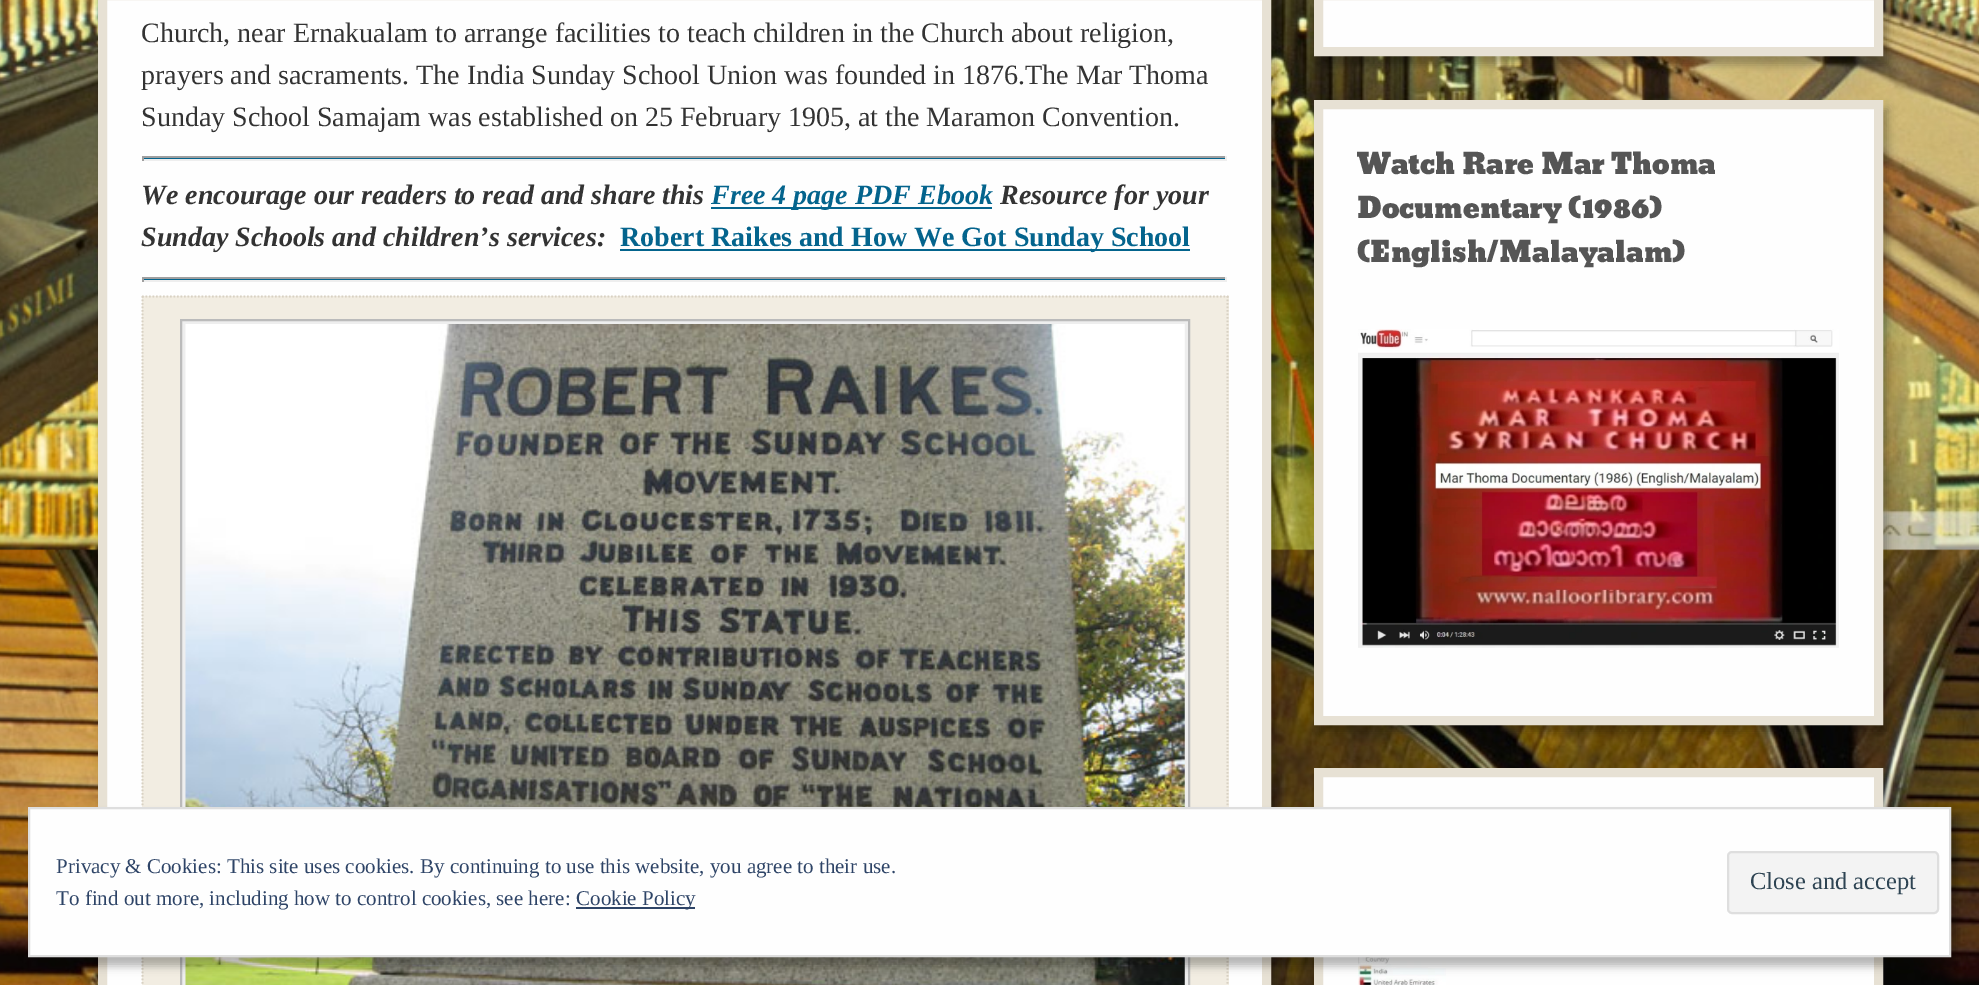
%!PS-Adobe-3.0
%%BoundingBox: 0 0 1979 985
%%LanguageLevel: 3
%%Pages: 1
%%EndComments
%%BeginProlog
/setink { 3 { 255 div 3 1 roll } repeat setrgbcolor } def
/usefont { [ exch dup neg 0 0 3 -1 roll 0 0 ] selectfont } def
/drawtext { setink usefont moveto show } def
/fillbox { setink rectfill } def
/setalpha { dup .setfillconstantalpha .setstrokeconstantalpha } def
/rrect { 5 dict begin { /r /h /w /y /x } { exch def } forall
  x r add y moveto x w add y 2 copy h add r arct x w add y h add x 1 index r arct
  x y h add x y r arct x y 2 copy exch w add exch r arct closepath end } def
/softshadow { 12 dict begin { /a /b /q /h /w /y /x } { exch def } forall gsave /was 0 def
  9 -2 -9 { dup b mul 4 div /e exch def 1 sub .425 mul 2.718 exch exp 1 add a .99 .min exch div /now exch def
    1 1 now sub 1 was sub div sub setalpha /was now def
    w h .min e 2 mul add 0 gt { x e sub y e sub w e 2 mul add h e 2 mul add
      q e add b .6 mul add w h .min 2 div e add .min 0 .max rrect fill } if } for grestore end } def
/drawimage { 5 dict begin { /h /w /y /x /name } { exch def } forall
  gsave x y translate w h scale
  w h 8 [w 0 0 h 0 0] name (r) file false 3 colorimage grestore end } def
%%EndProlog
%%BeginSetup
<< /PageSize [1979 985] /PageUsesTransparency true >> setpagedevice
%%EndSetup
%%Page: 1 1
0 .pushpdf14devicefilter
0 985 translate 1 -1 scale
4 setmiterlimit
0 0 1979 985 255 255 255 fillbox
(assets/img1.rgb) 0 0 1979 985 drawimage
0 0 0 setink
103 -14 1173 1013 0 4.5 0.3 softshadow
254 254 254 setink
102.5 -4.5 moveto 1266.5 -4.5 lineto 1266.5 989.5 lineto 102.5 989.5 lineto closepath gsave fill grestore
231 225 212 setink
9 setlinewidth
stroke
(Church, near Ernakualam to arrange facilities to teach children in the Church about religion,) 141 42 /LiberationSerif-Regular 28 51 51 51 drawtext
(prayers and sacraments. The India Sunday School Union was founded in 1876.The Mar Thoma) 141 84 /LiberationSerif-Regular 28 51 51 51 drawtext
(Sunday School Samajam was established on 25 February 1905, at the Maramon Convention.) 141 126 /LiberationSerif-Regular 28 51 51 51 drawtext
142 158 1085 1 4 100 141 fillbox
142 156 1085 2 159 159 159 fillbox
1225 156 2 5 238 238 238 fillbox
142 159 1085 2 238 238 238 fillbox
142 156 2 5 159 159 159 fillbox
(We encourage our readers to read and share this) 141 204 /LiberationSerif-BoldItalic 28 51 51 51 drawtext
711 207 281 2 4 100 141 fillbox
(Free 4 page PDF Ebook) 711 204 /LiberationSerif-BoldItalic 28 4 100 141 drawtext
(Resource for your) 1000 204 /LiberationSerif-BoldItalic 28 51 51 51 drawtext
(Sunday Schools and children’s services:) 141 246 /LiberationSerif-BoldItalic 28 51 51 51 drawtext
620 249 570 2 4 100 141 fillbox
(Robert Raikes and How We Got Sunday School) 620 246 /LiberationSerif-Bold 28 4 100 141 drawtext
142 279 1085 1 4 100 141 fillbox
142 277 1085 2 159 159 159 fillbox
1225 277 2 5 238 238 238 fillbox
142 280 1085 2 238 238 238 fillbox
142 277 2 5 159 159 159 fillbox
142 296 1087 689 242 237 226 fillbox
216 209 195 setink
1.8 setlinewidth
[1.75 1.75] 0 setdash
142 296.5 moveto 1228.5 296.5 lineto stroke
1227.5 296 moveto 1227.5 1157 lineto stroke
142.5 296 moveto 142.5 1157 lineto stroke
238 238 238 setink
181 320 moveto 1189 320 lineto 1189 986 lineto 181 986 lineto closepath gsave fill grestore
187 187 187 setink
2 setlinewidth
[] 0 setdash
stroke
(assets/img2.rgb) 185 324 1000 661 drawimage
0 0 0 setink
1320 -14 568 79 0 4.5 0.3 softshadow
254 254 254 setink
1318.5 -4.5 moveto 1878.5 -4.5 lineto 1878.5 51.5 lineto 1318.5 51.5 lineto closepath gsave fill grestore
231 225 212 setink
9 setlinewidth
stroke
0 0 0 setink
1320 109 568 624 0 4.5 0.3 softshadow
254 254 254 setink
1318.5 104.5 moveto 1878.5 104.5 lineto 1878.5 720.5 lineto 1318.5 720.5 lineto closepath gsave fill grestore
231 225 212 setink
stroke
(Watch Rare Mar Thoma) 1357 174 /Bevan-Regular 28 85 85 85 drawtext
(Documentary \(1986\)) 1357 218 /Bevan-Regular 28 85 85 85 drawtext
(\(English/Malayalam\)) 1357 262 /Bevan-Regular 28 85 85 85 drawtext
(assets/img3.rgb) 1358 329 481 319 drawimage
0 0 0 setink
1320 777 568 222 0 4.5 0.3 softshadow
254 254 254 setink
1318.5 772.5 moveto 1878.5 772.5 lineto 1878.5 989.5 lineto 1318.5 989.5 lineto closepath gsave fill grestore
231 225 212 setink
stroke
(assets/img4.rgb) 1358 957 88 28 drawimage
0 0 0 setink
33 816 1924 150 0 4.5 0.3 softshadow
254 254 254 setink
29 808 moveto 1950 808 lineto 1950 956 lineto 29 956 lineto closepath gsave fill grestore
222 222 222 setink
2 setlinewidth
stroke
(Privacy & Cookies: This site uses cookies. By continuing to use this website, you agree to their use.) 56 873 /LiberationSerif-Regular 21 46 68 103 drawtext
243 243 243 setink
1728 852 210 61 4 rrect gsave fill grestore
222 222 222 setink
stroke
(Close and accept) 1750 889 /LiberationSerif-Regular 24.5 46 68 83 drawtext
(To find out more, including how to control cookies, see here:) 56 905 /LiberationSerif-Regular 21 46 68 103 drawtext
576 907 119 2 46 68 103 fillbox
(Cookie Policy) 576 905 /LiberationSerif-Regular 21 46 68 103 drawtext
.poppdf14devicefilter showpage
%%EOF
